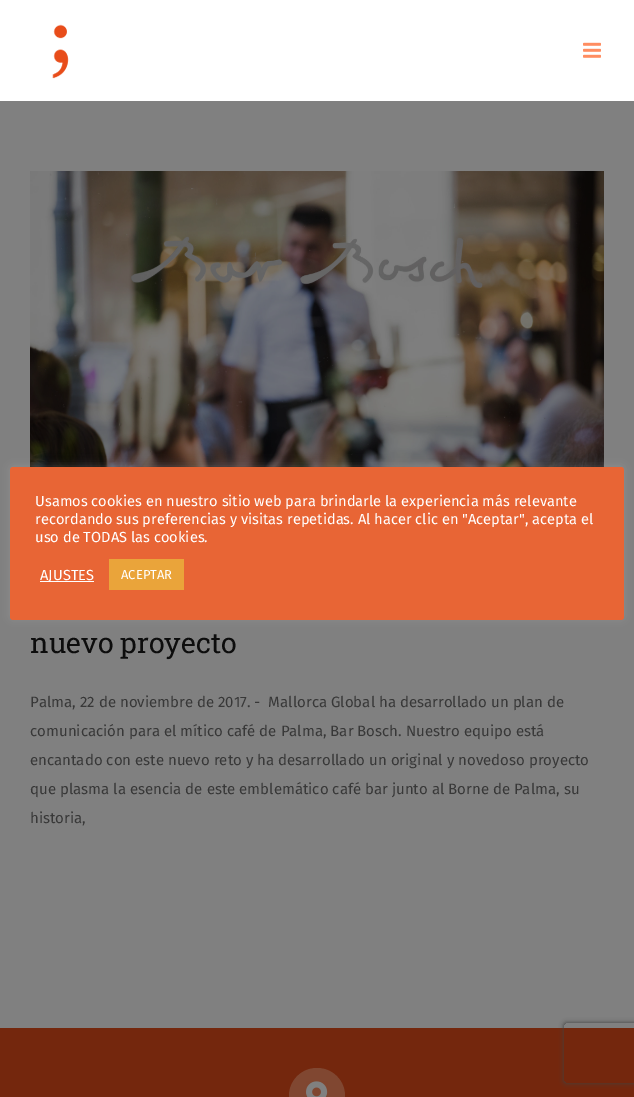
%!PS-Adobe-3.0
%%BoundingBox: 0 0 634 1097
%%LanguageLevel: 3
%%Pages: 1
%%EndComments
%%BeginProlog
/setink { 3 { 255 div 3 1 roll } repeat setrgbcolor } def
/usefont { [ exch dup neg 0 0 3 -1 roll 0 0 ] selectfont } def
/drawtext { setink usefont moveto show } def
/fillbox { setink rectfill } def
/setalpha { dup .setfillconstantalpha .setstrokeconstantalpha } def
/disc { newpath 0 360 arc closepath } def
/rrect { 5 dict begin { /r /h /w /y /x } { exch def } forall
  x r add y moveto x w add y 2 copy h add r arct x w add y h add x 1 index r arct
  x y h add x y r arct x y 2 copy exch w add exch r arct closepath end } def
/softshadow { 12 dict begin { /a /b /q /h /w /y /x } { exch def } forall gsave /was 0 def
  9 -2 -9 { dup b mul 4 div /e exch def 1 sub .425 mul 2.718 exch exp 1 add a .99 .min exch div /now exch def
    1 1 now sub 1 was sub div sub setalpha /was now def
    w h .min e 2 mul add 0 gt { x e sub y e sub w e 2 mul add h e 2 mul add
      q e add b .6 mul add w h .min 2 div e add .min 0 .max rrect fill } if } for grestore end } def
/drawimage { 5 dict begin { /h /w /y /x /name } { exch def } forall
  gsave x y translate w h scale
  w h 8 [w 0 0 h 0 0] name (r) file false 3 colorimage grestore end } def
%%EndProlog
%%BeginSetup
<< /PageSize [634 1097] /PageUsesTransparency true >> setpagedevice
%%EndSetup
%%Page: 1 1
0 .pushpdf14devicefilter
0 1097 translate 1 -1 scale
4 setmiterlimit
0 0 634 1097 128 128 128 fillbox
(assets/img3.rgb) 30 171 574 296 drawimage
172 171 171 setink
10 466 614 153 3 5 0.3 softshadow
232 101 53 setink
10 467 614 153 3 rrect fill
(Usamos cookies en nuestro sitio web para brindarle la experiencia más relevante) 35 506 /FiraSans-Regular 14.65 255 255 255 drawtext
(recordando sus preferencias y visitas repetidas. Al hacer clic en "Aceptar", acepta el) 35 524 /FiraSans-Regular 14.65 255 255 255 drawtext
(uso de TODAS las cookies.) 35 542 /FiraSans-Regular 14.65 255 255 255 drawtext
40 581 54 1 255 255 255 fillbox
(AJUSTES) 40 580 /FiraSans-Regular 14.65 255 255 255 drawtext
109 559 75 31 234 164 58 fillbox
(ACEPTAR) 121 579 /FiraSans-Regular 13 255 255 255 drawtext
0 0 634 101 255 255 255 fillbox
(assets/img1.rgb) 52 24 17 55 drawimage
(assets/img2.rgb) 583 42 18 16 drawimage
(nuevo proyecto) 30 653 /RobotoSlab-Regular 28.5 13 13 13 drawtext
(Palma, 22 de noviembre de 2017. -  Mallorca Global ha desarrollado un plan de) 30 707 /FiraSans-Regular 15 56 56 56 drawtext
(comunicación para el mítico café de Palma, Bar Bosch. Nuestro equipo está) 30 736 /FiraSans-Regular 15 56 56 56 drawtext
(encantado con este nuevo reto y ha desarrollado un original y novedoso proyecto) 30 765 /FiraSans-Regular 15 56 56 56 drawtext
(que plasma la esencia de este emblemático café bar junto al Borne de Palma, su) 30 794 /FiraSans-Regular 15 56 56 56 drawtext
(historia,) 30 823 /FiraSans-Regular 15 56 56 56 drawtext
0 1028 634 69 116 39 13 fillbox
128 71 49 setink
317 1096 28 disc fill
(assets/img4.rgb) 306 1081 22 16 drawimage
gsave
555 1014 moveto 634 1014 lineto 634 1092 lineto 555 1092 lineto closepath 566 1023 moveto 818 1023 lineto 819 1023 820 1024 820 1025 curveto 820 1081 lineto 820 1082 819 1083 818 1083 curveto 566 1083 lineto 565 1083 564 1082 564 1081 curveto 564 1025 lineto 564 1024 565 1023 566 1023 curveto closepath eoclip newpath
64 64 64 setink
564 1023 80 60 2 2.5 1 softshadow
grestore
.poppdf14devicefilter showpage
%%EOF
